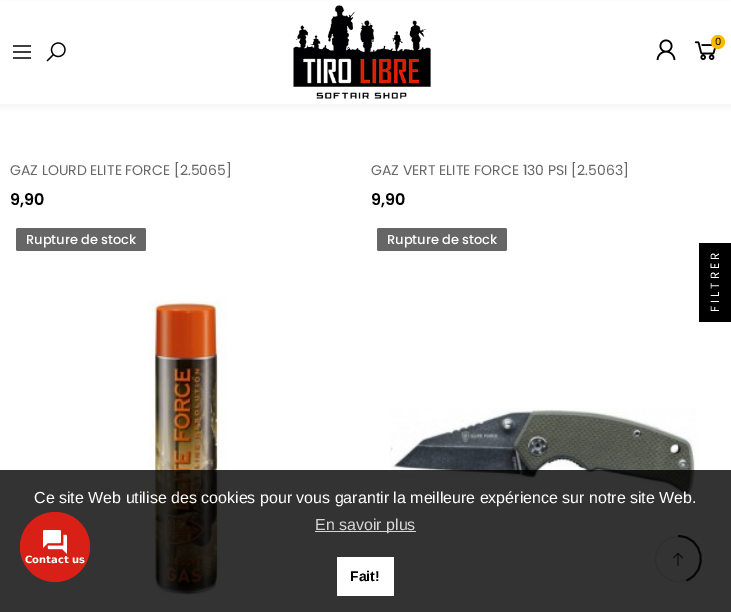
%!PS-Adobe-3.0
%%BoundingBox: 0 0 731 612
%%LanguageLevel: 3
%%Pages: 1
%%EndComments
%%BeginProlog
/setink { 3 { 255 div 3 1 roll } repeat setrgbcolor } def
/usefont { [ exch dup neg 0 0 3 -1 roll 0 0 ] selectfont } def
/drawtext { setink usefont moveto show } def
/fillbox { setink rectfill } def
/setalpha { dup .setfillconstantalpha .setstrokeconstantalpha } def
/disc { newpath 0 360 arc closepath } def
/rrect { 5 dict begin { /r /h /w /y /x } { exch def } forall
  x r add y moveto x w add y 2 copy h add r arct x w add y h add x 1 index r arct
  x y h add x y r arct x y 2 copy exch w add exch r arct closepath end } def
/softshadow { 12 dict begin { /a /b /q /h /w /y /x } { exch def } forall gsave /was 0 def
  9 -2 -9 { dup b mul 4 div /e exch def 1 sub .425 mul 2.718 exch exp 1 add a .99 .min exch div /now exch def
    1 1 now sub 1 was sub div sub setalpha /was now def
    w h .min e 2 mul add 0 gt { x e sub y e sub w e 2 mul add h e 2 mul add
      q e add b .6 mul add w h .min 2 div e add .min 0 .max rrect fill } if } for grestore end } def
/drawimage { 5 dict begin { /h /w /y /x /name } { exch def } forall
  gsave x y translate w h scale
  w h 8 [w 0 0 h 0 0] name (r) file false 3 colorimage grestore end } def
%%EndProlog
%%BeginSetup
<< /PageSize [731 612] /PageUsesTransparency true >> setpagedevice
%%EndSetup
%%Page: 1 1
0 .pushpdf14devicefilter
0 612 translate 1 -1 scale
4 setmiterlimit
0 0 731 612 255 255 255 fillbox
51 51 51 setink
0 3 731 104 0 3 0.05 softshadow
0 1 731 103 255 255 255 fillbox
(assets/img1.rgb) 293 5 138 94 drawimage
(assets/img2.rgb) 656 39 20 22 drawimage
(assets/img3.rgb) 694 41 22 19 drawimage
255 185 1 setink
718 42 7 disc fill
(0) 715 45 /Poppins-Regular 10 0 0 0 drawtext
(assets/img4.rgb) 13 45 18 14 drawimage
(assets/img5.rgb) 46 42 20 20 drawimage
(GAZ LOURD ELITE FORCE [2.5065]) 10 175 /Poppins-Regular 14 102 102 102 drawtext
(9,90) 10 205 /Poppins-SemiBold 16 0 0 0 drawtext
(GAZ VERT ELITE FORCE 130 PSI [2.5063]) 371 175 /Poppins-Regular 14 102 102 102 drawtext
(9,90) 371 205 /Poppins-SemiBold 16 0 0 0 drawtext
102 102 102 setink
16 228 130 23 2 rrect fill
(Rupture de stock) 26 244 /Poppins-Medium 13 255 255 255 drawtext
(assets/img6.rgb) 148 300 79 296 drawimage
102 102 102 setink
377 228 130 23 2 rrect fill
(Rupture de stock) 387 244 /Poppins-Medium 13 255 255 255 drawtext
(assets/img7.rgb) 390 408 308 89 drawimage
699 243 32 79 0 0 0 fillbox
/Poppins-Regular 12 usefont
255 255 255 setink
gsave 719 312 translate -90 rotate 0 0 moveto 3 0 (FILTRER) ashow grestore
231 231 231 setink
678 559 22.5 disc stroke
34 34 34 setink
1.9 setlinewidth
678 536 moveto 703.5 536 709.5 571 686.5 580.5 curveto stroke
(assets/img9.rgb) 672 552 12 14 drawimage
0.8 setalpha
0 470 731 142 0 0 0 fillbox
1 setalpha
(Ce site Web utilise des cookies pour vous garantir la meilleure expérience sur notre site Web.) 34 503 /LiberationSans-Regular 16 255 255 255 drawtext
315 531 101 1 214 214 214 fillbox
(En savoir plus) 315 530 /LiberationSans-Regular 16 214 214 214 drawtext
337 557 57 39 255 255 255 fillbox
(Fait!) 350 581 /LiberationSans-Bold 14 0 0 0 drawtext
216 32 23 setink
55 547 35 disc fill
(assets/img8.rgb) 43 530 24 24 drawimage
(Contact us) 25 563 /DejaVuSans-Bold 10 255 255 255 drawtext
.poppdf14devicefilter showpage
%%EOF
